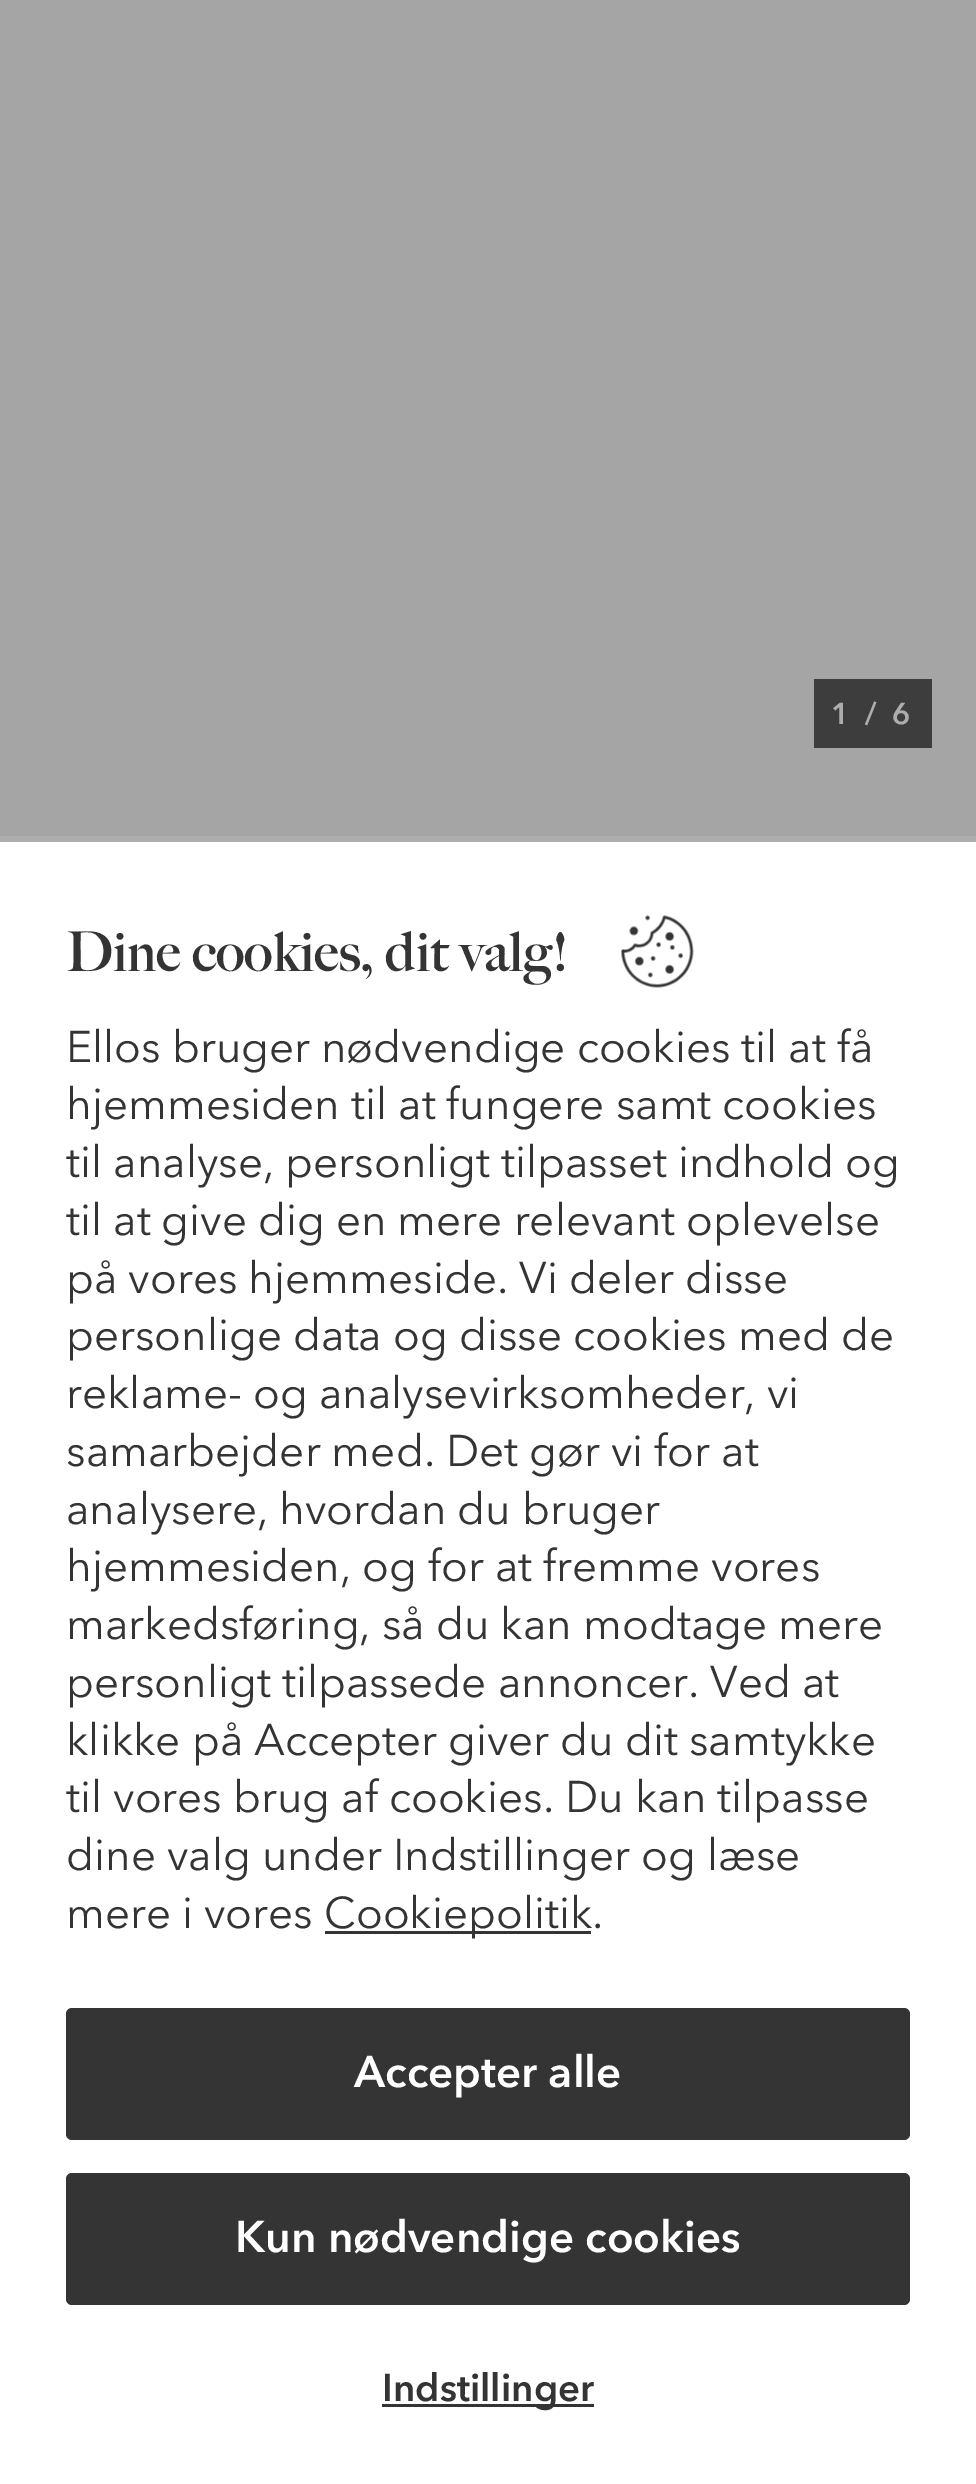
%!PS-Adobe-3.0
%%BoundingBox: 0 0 976 2484
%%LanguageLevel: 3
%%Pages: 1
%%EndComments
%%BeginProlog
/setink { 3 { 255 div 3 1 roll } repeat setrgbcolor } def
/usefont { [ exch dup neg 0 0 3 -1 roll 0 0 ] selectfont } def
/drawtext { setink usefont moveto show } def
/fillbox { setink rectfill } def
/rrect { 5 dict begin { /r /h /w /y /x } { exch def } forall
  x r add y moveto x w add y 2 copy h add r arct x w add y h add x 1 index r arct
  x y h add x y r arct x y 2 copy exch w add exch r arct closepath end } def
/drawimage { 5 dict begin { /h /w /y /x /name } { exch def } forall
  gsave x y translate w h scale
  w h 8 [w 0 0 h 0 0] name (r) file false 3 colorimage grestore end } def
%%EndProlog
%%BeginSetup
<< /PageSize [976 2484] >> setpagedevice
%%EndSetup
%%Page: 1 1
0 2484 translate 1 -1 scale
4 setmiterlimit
0 0 976 2484 173 173 173 fillbox
0 0 976 836 165 165 165 fillbox
814 679 118 69 61 61 61 fillbox
/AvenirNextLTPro-Bold 30 usefont
173 173 173 setink
831 724 moveto 4 0 (1 / 6) ashow
0 842 976 1642 255 255 255 fillbox
(Dine cookies, dit valg!) 66 971 /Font-Bold 55 52 52 52 drawtext
(assets/img1.rgb) 621 915 73 73 drawimage
(Ellos bruger nødvendige cookies til at få) 66 1062 /AvenirNextLTPro-Regular 44 52 52 52 drawtext
(hjemmesiden til at fungere samt cookies) 66 1119 /AvenirNextLTPro-Regular 44 52 52 52 drawtext
(til analyse, personligt tilpasset indhold og) 66 1177 /AvenirNextLTPro-Regular 44 52 52 52 drawtext
(til at give dig en mere relevant oplevelse) 66 1235 /AvenirNextLTPro-Regular 44 52 52 52 drawtext
(på vores hjemmeside. Vi deler disse) 66 1293 /AvenirNextLTPro-Regular 44 52 52 52 drawtext
(personlige data og disse cookies med de) 66 1350 /AvenirNextLTPro-Regular 44 52 52 52 drawtext
(reklame- og analysevirksomheder, vi) 66 1408 /AvenirNextLTPro-Regular 44 52 52 52 drawtext
(samarbejder med. Det gør vi for at) 66 1466 /AvenirNextLTPro-Regular 44 52 52 52 drawtext
(analysere, hvordan du bruger) 66 1524 /AvenirNextLTPro-Regular 44 52 52 52 drawtext
(hjemmesiden, og for at fremme vores) 66 1581 /AvenirNextLTPro-Regular 44 52 52 52 drawtext
(markedsføring, så du kan modtage mere) 66 1639 /AvenirNextLTPro-Regular 44 52 52 52 drawtext
(personligt tilpassede annoncer. Ved at) 66 1697 /AvenirNextLTPro-Regular 44 52 52 52 drawtext
(klikke på Accepter giver du dit samtykke) 66 1755 /AvenirNextLTPro-Regular 44 52 52 52 drawtext
(til vores brug af cookies. Du kan tilpasse) 66 1812 /AvenirNextLTPro-Regular 44 52 52 52 drawtext
(dine valg under Indstillinger og læse) 66 1870 /AvenirNextLTPro-Regular 44 52 52 52 drawtext
(mere i vores) 66 1928 /AvenirNextLTPro-Regular 44 52 52 52 drawtext
325 1931 266 3 52 52 52 fillbox
(Cookiepolitik.) 324 1928 /AvenirNextLTPro-Regular 44 52 52 52 drawtext
66 2008 844 132 6 rrect fill
(Accepter alle) 354 2087 /AvenirNextLTPro-Bold 44 255 255 255 drawtext
52 52 52 setink
66 2173 844 132 6 rrect fill
(Kun nødvendige cookies) 235 2252 /AvenirNextLTPro-Bold 44 255 255 255 drawtext
382 2404 212 3 52 52 52 fillbox
(Indstillinger) 382 2401 /AvenirNextLTPro-Bold 38.5 52 52 52 drawtext
showpage
%%EOF
